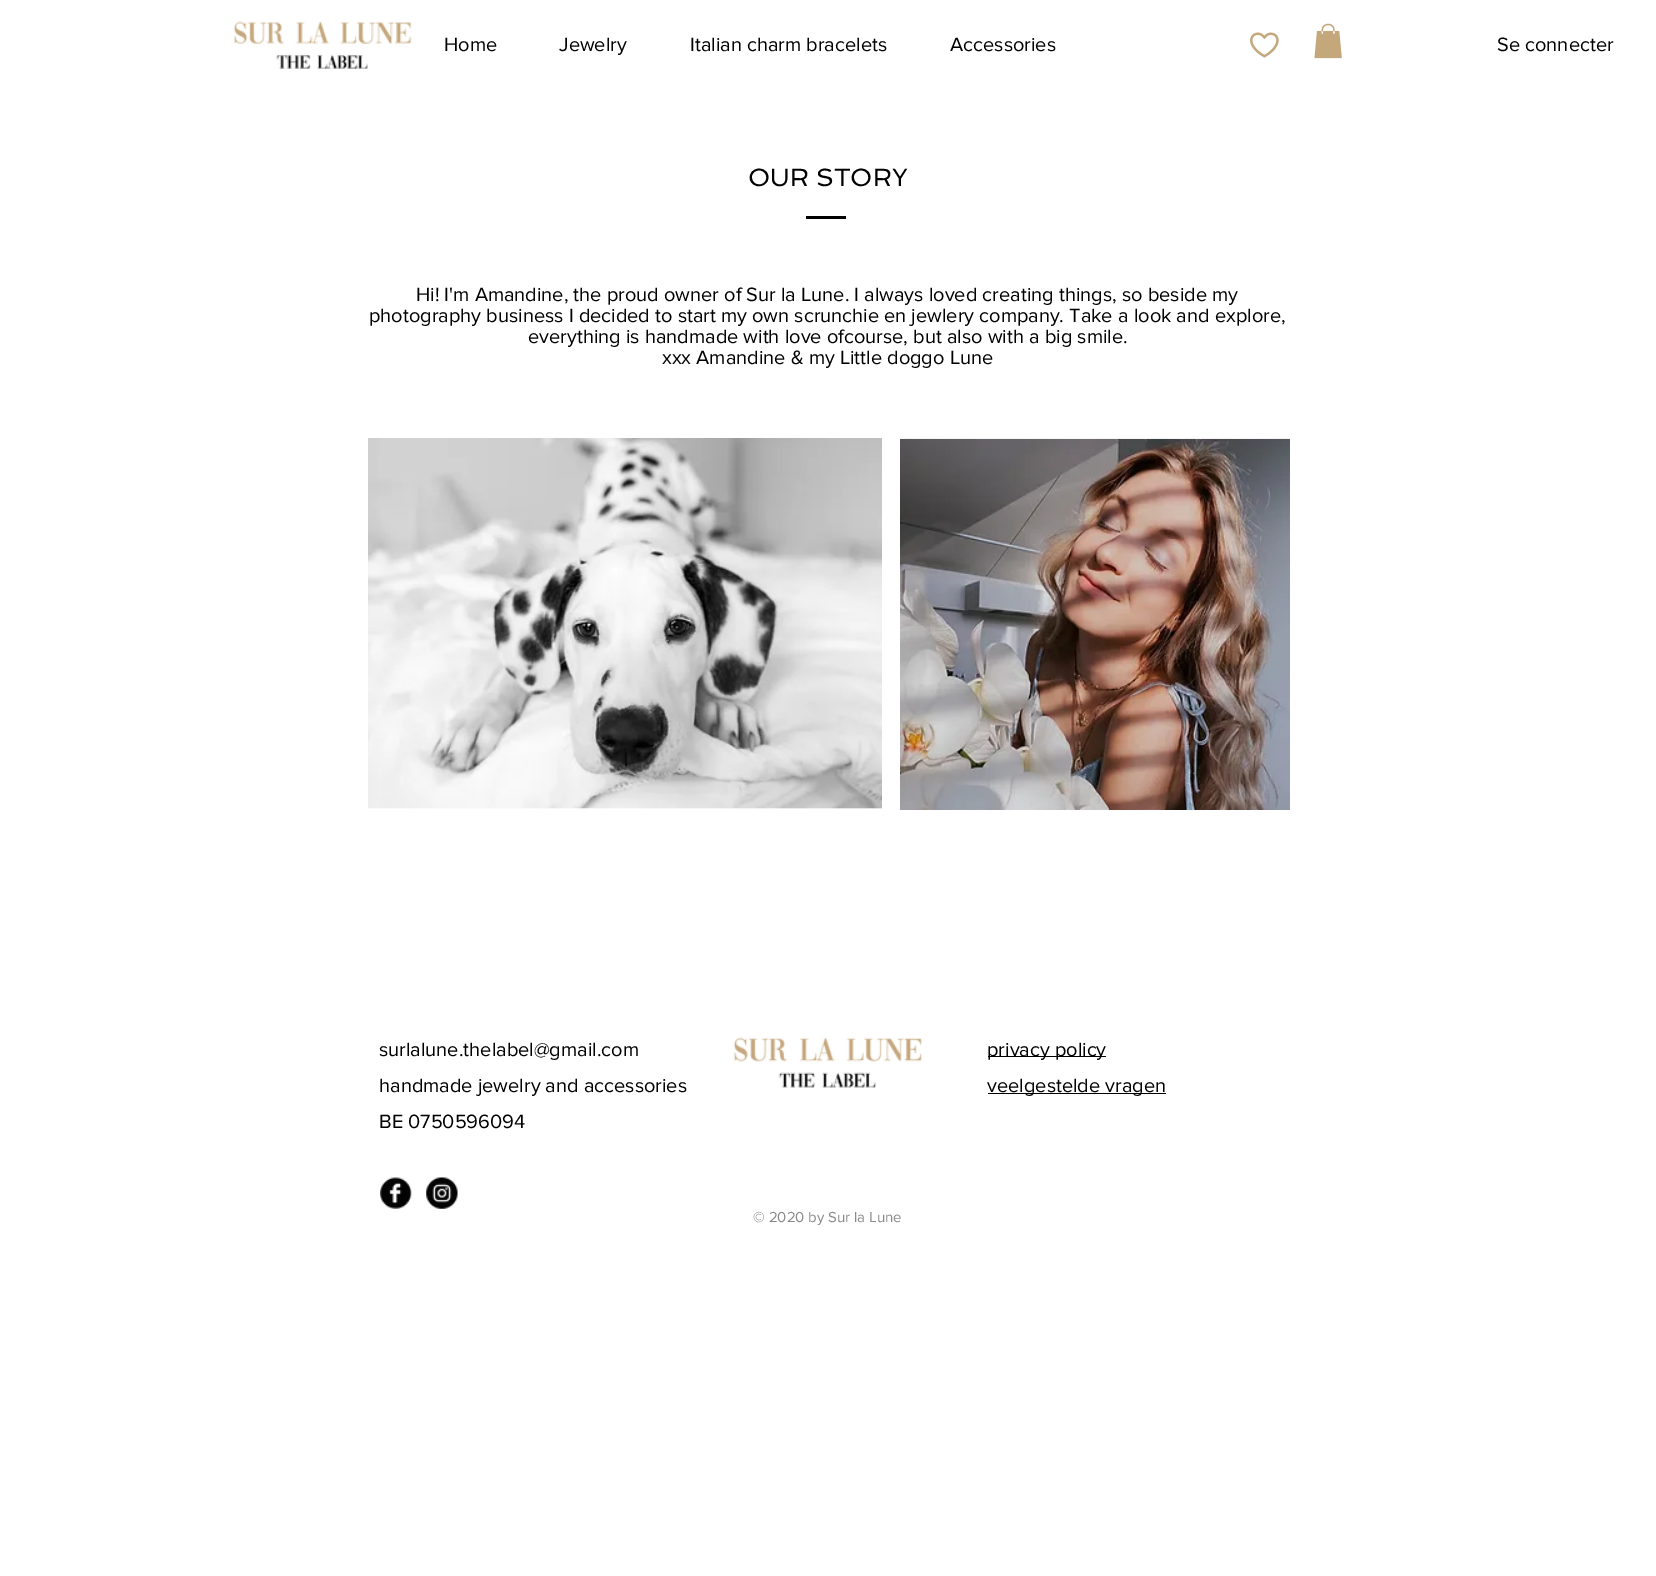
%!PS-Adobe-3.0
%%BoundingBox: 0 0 1656 1576
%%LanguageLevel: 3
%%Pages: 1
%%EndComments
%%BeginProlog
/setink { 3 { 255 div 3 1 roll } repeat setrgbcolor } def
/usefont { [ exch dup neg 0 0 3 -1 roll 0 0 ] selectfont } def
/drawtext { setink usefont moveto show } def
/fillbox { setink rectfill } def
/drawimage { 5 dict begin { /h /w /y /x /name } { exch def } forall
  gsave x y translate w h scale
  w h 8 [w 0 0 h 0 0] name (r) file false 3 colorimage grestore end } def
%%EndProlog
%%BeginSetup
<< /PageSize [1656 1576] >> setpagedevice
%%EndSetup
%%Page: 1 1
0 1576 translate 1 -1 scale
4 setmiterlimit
0 0 1656 1576 255 255 255 fillbox
(assets/img1.rgb) 233 21 179 48 drawimage
(Home) 444 51 /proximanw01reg-Regular 20 0 0 0 drawtext
(Jewelry) 559 51 /proximanw01reg-Regular 20 0 0 0 drawtext
(Italian charm bracelets) 690 51 /proximanw01reg-Regular 20 0 0 0 drawtext
(Accessories) 950 51 /proximanw01reg-Regular 20 0 0 0 drawtext
(assets/img2.rgb) 1250 32 29 26 drawimage
(assets/img3.rgb) 1314 23 28 36 drawimage
(Se connecter) 1497 51 /proximanw01reg-Regular 20 0 0 0 drawtext
(OUR STORY) 748 186 /Spinnaker-Regular 25 0 0 0 drawtext
806 216 40 3 0 0 0 fillbox
(Hi! I'm Amandine, the proud owner of Sur la Lune. I always loved creating things, so beside my) 416 301 /proximanw01reg-Regular 20 0 0 0 drawtext
(photography business I decided to start my own scrunchie en jewlery company. Take a look and explore,) 369 322 /proximanw01reg-Regular 20 0 0 0 drawtext
(everything is handmade with love ofcourse, but also with a big smile.) 528 343 /proximanw01reg-Regular 20 0 0 0 drawtext
(xxx Amandine & my Little doggo Lune) 662 364 /proximanw01reg-Regular 20 0 0 0 drawtext
(assets/img4.rgb) 368 438 514 371 drawimage
(assets/img5.rgb) 900 438 390 372 drawimage
(surlalune.thelabel@gmail.com) 379 1056 /proximanw01reg-Regular 20 0 0 0 drawtext
(handmade jewelry and accessories) 379 1092 /proximanw01reg-Regular 20 0 0 0 drawtext
(BE 0750596094) 379 1128 /proximanw01reg-Regular 20 0 0 0 drawtext
(assets/img6.rgb) 733 1037 189 51 drawimage
988 1056 118 1 0 0 0 fillbox
(privacy policy) 987 1056 /proximanw01reg-Regular 20 0 0 0 drawtext
988 1093 178 1 0 0 0 fillbox
(veelgestelde vragen) 987 1092 /proximanw01reg-Regular 20 0 0 0 drawtext
(assets/img7.rgb) 380 1177 32 32 drawimage
(assets/img8.rgb) 426 1177 32 32 drawimage
(© 2020 by Sur la Lune) 753 1222 /proximanw01reg-Regular 15 139 138 138 drawtext
showpage
%%EOF
